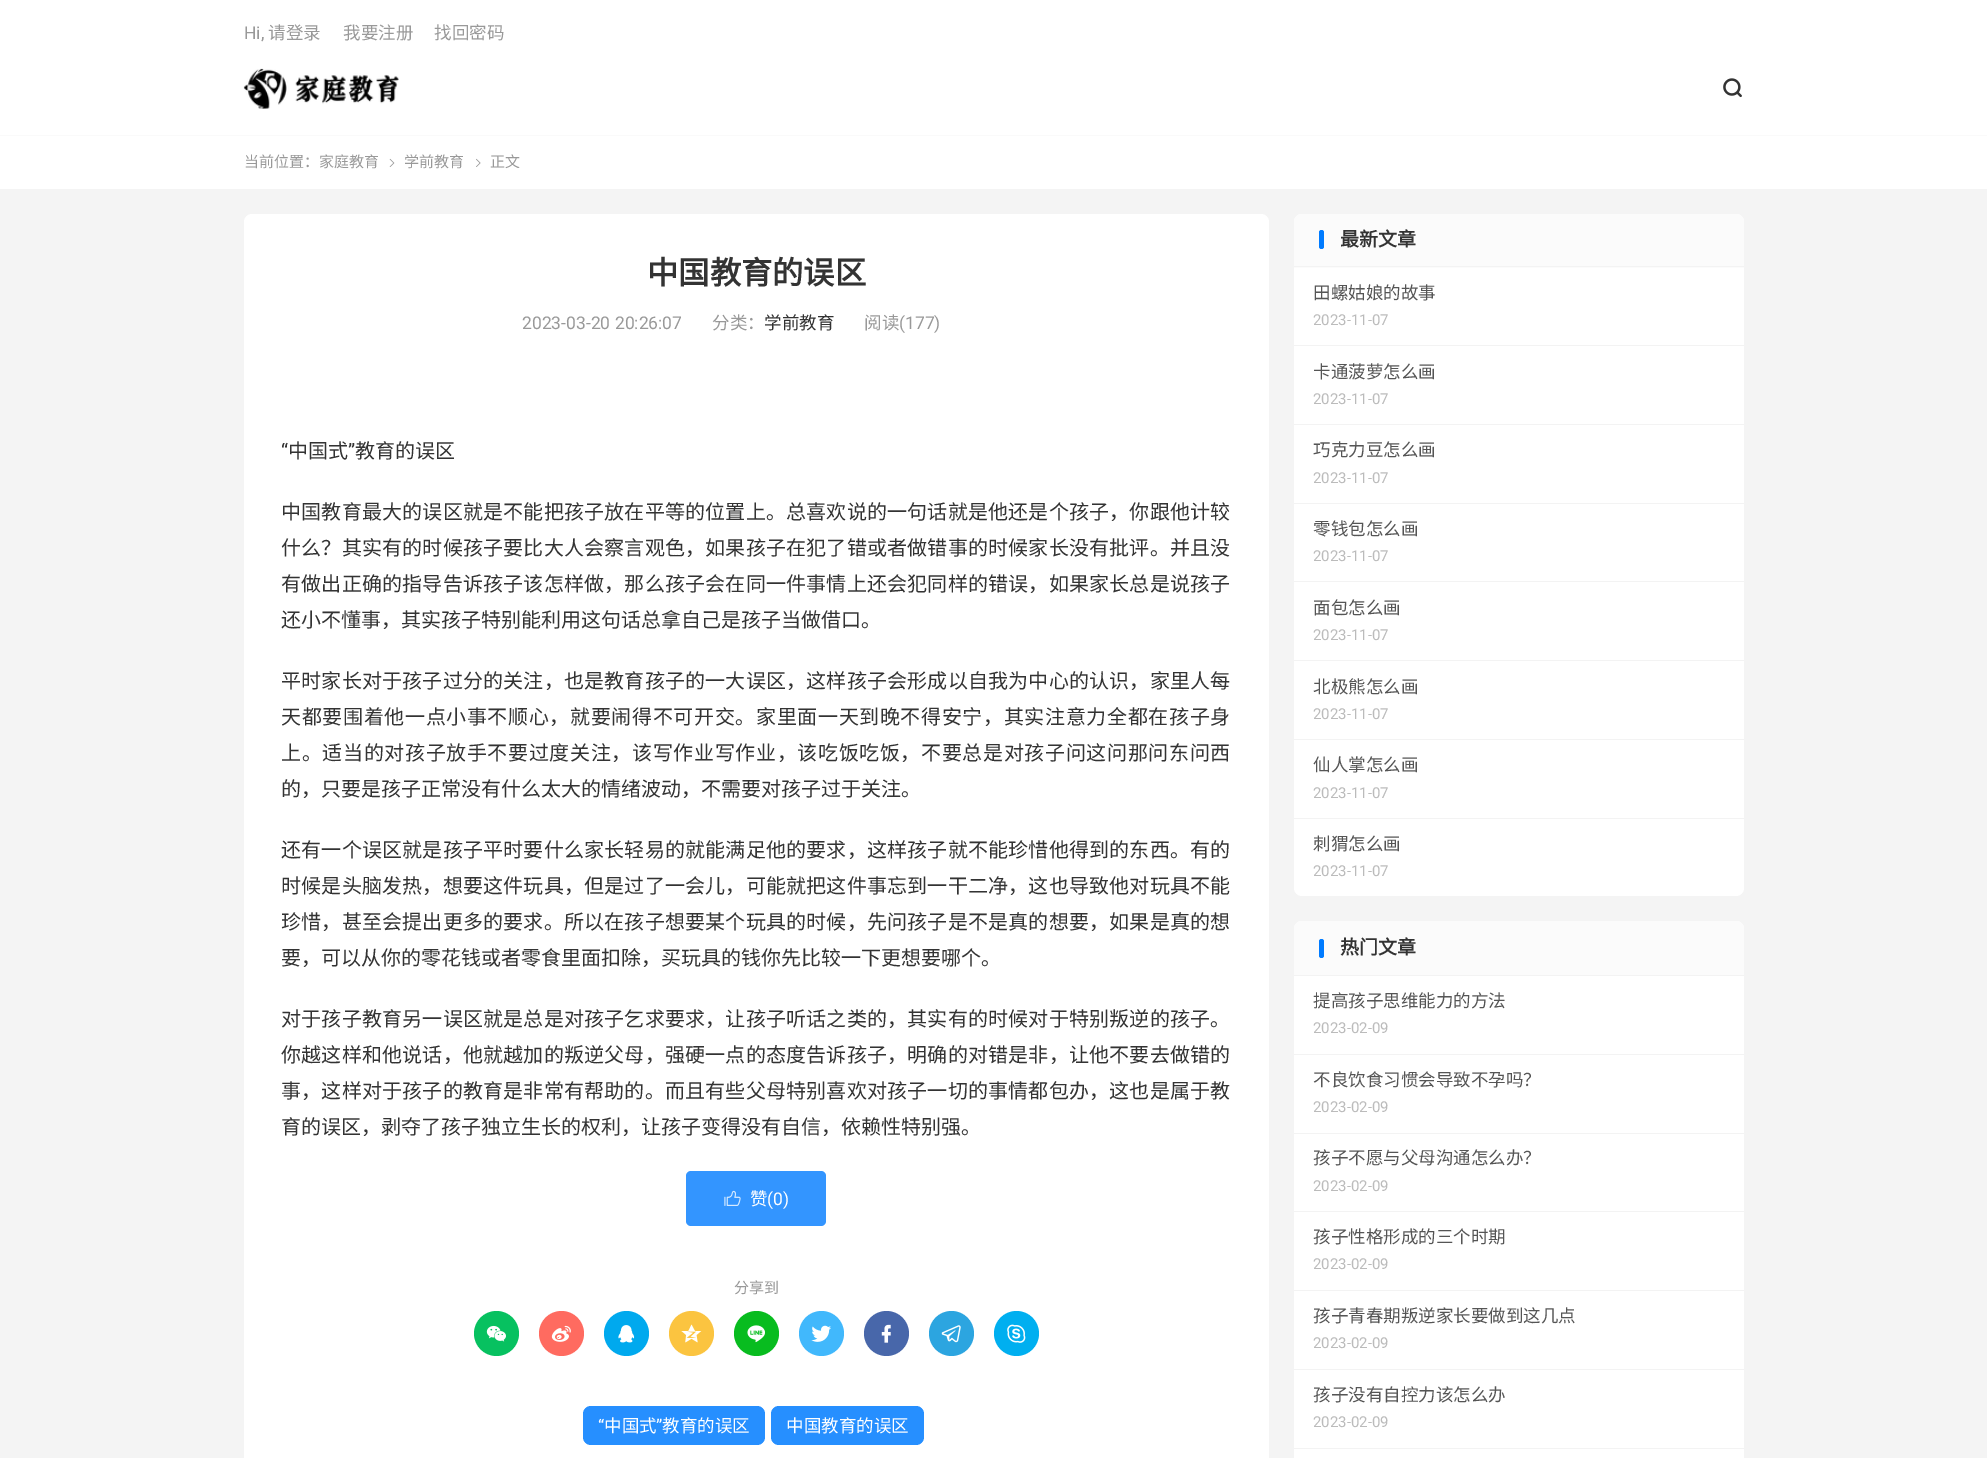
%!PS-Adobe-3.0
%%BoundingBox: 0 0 1987 1458
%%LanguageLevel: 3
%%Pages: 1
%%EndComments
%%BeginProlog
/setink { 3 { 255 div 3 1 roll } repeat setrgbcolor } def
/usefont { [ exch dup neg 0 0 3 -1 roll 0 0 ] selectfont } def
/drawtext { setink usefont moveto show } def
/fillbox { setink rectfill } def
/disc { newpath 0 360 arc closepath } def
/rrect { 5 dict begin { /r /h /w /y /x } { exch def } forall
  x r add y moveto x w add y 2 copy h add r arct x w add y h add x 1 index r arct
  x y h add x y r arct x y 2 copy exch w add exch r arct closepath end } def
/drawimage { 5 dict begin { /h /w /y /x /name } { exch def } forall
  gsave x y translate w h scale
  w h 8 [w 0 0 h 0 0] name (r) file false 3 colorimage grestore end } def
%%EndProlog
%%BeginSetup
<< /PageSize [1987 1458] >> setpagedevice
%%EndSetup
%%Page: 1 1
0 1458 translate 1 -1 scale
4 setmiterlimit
0 0 1987 1458 244 244 244 fillbox
0 0 1987 135 255 255 255 fillbox
(Hi,) 244 39 /Roboto-Regular 17.5 153 153 153 drawtext
(请登录) 268 39 /NotoSansCJKSC-Regular 17.5 153 153 153 drawtext
(我要注册) 343 39 /NotoSansCJKSC-Regular 17.5 153 153 153 drawtext
(找回密码) 434 39 /NotoSansCJKSC-Regular 17.5 153 153 153 drawtext
(assets/img1.rgb) 243 68 156 41 drawimage
(assets/img2.rgb) 1723 78 19 20 drawimage
0 136 1987 53 255 255 255 fillbox
0 135 1987 1 250 250 250 fillbox
(当前位置：家庭教育) 244 167 /NotoSansCJKSC-Regular 15 153 153 153 drawtext
(assets/img3.rgb) 389 158 6 9 drawimage
(学前教育) 404 167 /NotoSansCJKSC-Regular 15 153 153 153 drawtext
(assets/img4.rgb) 476 158 5 9 drawimage
(正文) 490 167 /NotoSansCJKSC-Regular 15 153 153 153 drawtext
255 255 255 setink
244 214 1025 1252 8 rrect fill
(中国教育的误区) 647 284 /NotoSansCJKSC-Bold 31.25 51 51 51 drawtext
(2023-03-20 20:26:07) 522 329 /Roboto-Regular 17.5 153 153 153 drawtext
(分类：) 712 329 /NotoSansCJKSC-Regular 17.5 153 153 153 drawtext
(学前教育) 764 329 /NotoSansCJKSC-Regular 17.5 51 51 51 drawtext
(阅读) 864 329 /NotoSansCJKSC-Regular 17.5 153 153 153 drawtext
(\(177\)) 899 329 /Roboto-Regular 17.5 153 153 153 drawtext
(“) 281 458 /Roboto-Regular 20 51 51 51 drawtext
(中国式) 288 458 /NotoSansCJKSC-Regular 20 51 51 51 drawtext
(”) 348 458 /Roboto-Regular 20 51 51 51 drawtext
(教育的误区) 355 458 /NotoSansCJKSC-Regular 20 51 51 51 drawtext
281 519 moveto 0.2 0 (中国教育最大的误区就是不能把孩子放在平等的位置上。总喜欢说的一句话就是他还是个孩子，你跟他计较) ashow
281 555 moveto 0.2 0 (什么？其实有的时候孩子要比大人会察言观色，如果孩子在犯了错或者做错事的时候家长没有批评。并且没) ashow
281 591 moveto 0.2 0 (有做出正确的指导告诉孩子该怎样做，那么孩子会在同一件事情上还会犯同样的错误，如果家长总是说孩子) ashow
(还小不懂事，其实孩子特别能利用这句话总拿自己是孩子当做借口。) 281 627 /NotoSansCJKSC-Regular 20 51 51 51 drawtext
281 688 moveto 0.2 0 (平时家长对于孩子过分的关注，也是教育孩子的一大误区，这样孩子会形成以自我为中心的认识，家里人每) ashow
281 724 moveto 0.65 0 (天都要围着他一点小事不顺心，就要闹得不可开交。家里面一天到晚不得安宁，其实注意力全都在孩子身) ashow
281 760 moveto 0.65 0 (上。适当的对孩子放手不要过度关注，该写作业写作业，该吃饭吃饭，不要总是对孩子问这问那问东问西) ashow
(的，只要是孩子正常没有什么太大的情绪波动，不需要对孩子过于关注。) 281 796 /NotoSansCJKSC-Regular 20 51 51 51 drawtext
281 857 moveto 0.2 0 (还有一个误区就是孩子平时要什么家长轻易的就能满足他的要求，这样孩子就不能珍惜他得到的东西。有的) ashow
281 893 moveto 0.2 0 (时候是头脑发热，想要这件玩具，但是过了一会儿，可能就把这件事忘到一干二净，这也导致他对玩具不能) ashow
281 929 moveto 0.2 0 (珍惜，甚至会提出更多的要求。所以在孩子想要某个玩具的时候，先问孩子是不是真的想要，如果是真的想) ashow
(要，可以从你的零花钱或者零食里面扣除，买玩具的钱你先比较一下更想要哪个。) 281 965 /NotoSansCJKSC-Regular 20 51 51 51 drawtext
281 1026 moveto 0.2 0 (对于孩子教育另一误区就是总是对孩子乞求要求，让孩子听话之类的，其实有的时候对于特别叛逆的孩子。) ashow
281 1062 moveto 0.2 0 (你越这样和他说话，他就越加的叛逆父母，强硬一点的态度告诉孩子，明确的对错是非，让他不要去做错的) ashow
281 1098 moveto 0.2 0 (事，这样对于孩子的教育是非常有帮助的。而且有些父母特别喜欢对孩子一切的事情都包办，这也是属于教) ashow
(育的误区，剥夺了孩子独立生长的权利，让孩子变得没有自信，依赖性特别强。) 281 1134 /NotoSansCJKSC-Regular 20 51 51 51 drawtext
51 149 255 setink
686 1171 140 55 5 rrect fill
(assets/img5.rgb) 724 1190 17 16 drawimage
(赞) 750 1205 /NotoSansCJKSC-Regular 17.5 255 255 255 drawtext
(\(0\)) 767 1205 /Roboto-Regular 17.5 255 255 255 drawtext
(分享到) 734 1293 /NotoSansCJKSC-Regular 15 153 153 153 drawtext
7 193 96 setink
496.5 1333.5 22.5 disc fill
(assets/img6.rgb) 486 1325 20 17 drawimage
255 107 96 setink
561.5 1333.5 22.5 disc fill
(assets/img7.rgb) 551 1325 20 17 drawimage
0 169 238 setink
626.5 1333.5 22.5 disc fill
(assets/img8.rgb) 618 1325 17 18 drawimage
251 196 64 setink
691.5 1333.5 22.5 disc fill
(assets/img9.rgb) 681 1324 21 19 drawimage
8 188 31 setink
756.5 1333.5 22.5 disc fill
(assets/img10.rgb) 747 1325 18 18 drawimage
65 184 252 setink
821.5 1333.5 22.5 disc fill
(assets/img11.rgb) 811 1325 20 17 drawimage
72 103 170 setink
886.5 1333.5 22.5 disc fill
(assets/img12.rgb) 881 1324 10 19 drawimage
44 165 224 setink
951.5 1333.5 22.5 disc fill
(assets/img13.rgb) 941 1325 20 18 drawimage
0 175 240 setink
1016.5 1333.5 22.5 disc fill
(assets/img14.rgb) 1007 1324 19 19 drawimage
38 143 255 setink
583 1406 182 39 8 rrect fill
(“) 598 1432 /Roboto-Regular 17.5 255 255 255 drawtext
(中国式) 604 1432 /NotoSansCJKSC-Regular 17.5 255 255 255 drawtext
(”) 656 1432 /Roboto-Regular 17.5 255 255 255 drawtext
(教育的误区) 662 1432 /NotoSansCJKSC-Regular 17.5 255 255 255 drawtext
38 143 255 setink
771 1406 153 39 8 rrect fill
(中国教育的误区) 786 1432 /NotoSansCJKSC-Regular 17.5 255 255 255 drawtext
1294 214 450 682 8 rrect fill
251 251 251 setink
1302 214 moveto 1736 214 lineto 1740.5 214 1744 217.5 1744 222 curveto 1744 268 lineto 1294 268 lineto 1294 222 lineto 1294 217.5 1297.5 214 1302 214 curveto closepath fill
1294 266 450 1 243 243 243 fillbox
0 123 255 setink
1319 230 5 19 2.5 rrect fill
(最新文章) 1340 246 /NotoSansCJKSC-Bold 19 51 51 51 drawtext
1294 345 450 1 243 243 243 fillbox
(田螺姑娘的故事) 1313 299 /NotoSansCJKSC-Regular 17.5 85 85 85 drawtext
(2023-11-07) 1313 325 /Roboto-Regular 15 187 187 187 drawtext
1294 424 450 1 243 243 243 fillbox
(卡通菠萝怎么画) 1313 378 /NotoSansCJKSC-Regular 17.5 85 85 85 drawtext
(2023-11-07) 1313 404 /Roboto-Regular 15 187 187 187 drawtext
1294 503 450 1 243 243 243 fillbox
(巧克力豆怎么画) 1313 456 /NotoSansCJKSC-Regular 17.5 85 85 85 drawtext
(2023-11-07) 1313 483 /Roboto-Regular 15 187 187 187 drawtext
1294 581 450 1 243 243 243 fillbox
(零钱包怎么画) 1313 535 /NotoSansCJKSC-Regular 17.5 85 85 85 drawtext
(2023-11-07) 1313 561 /Roboto-Regular 15 187 187 187 drawtext
1294 660 450 1 243 243 243 fillbox
(面包怎么画) 1313 614 /NotoSansCJKSC-Regular 17.5 85 85 85 drawtext
(2023-11-07) 1313 640 /Roboto-Regular 15 187 187 187 drawtext
1294 739 450 1 243 243 243 fillbox
(北极熊怎么画) 1313 693 /NotoSansCJKSC-Regular 17.5 85 85 85 drawtext
(2023-11-07) 1313 719 /Roboto-Regular 15 187 187 187 drawtext
1294 818 450 1 243 243 243 fillbox
(仙人掌怎么画) 1313 771 /NotoSansCJKSC-Regular 17.5 85 85 85 drawtext
(2023-11-07) 1313 798 /Roboto-Regular 15 187 187 187 drawtext
(刺猬怎么画) 1313 850 /NotoSansCJKSC-Regular 17.5 85 85 85 drawtext
(2023-11-07) 1313 876 /Roboto-Regular 15 187 187 187 drawtext
255 255 255 setink
1294 921 450 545 8 rrect fill
251 251 251 setink
1302 921 moveto 1736 921 lineto 1740.5 921 1744 924.5 1744 929 curveto 1744 976 lineto 1294 976 lineto 1294 929 lineto 1294 924.5 1297.5 921 1302 921 curveto closepath fill
1294 975 450 1 243 243 243 fillbox
0 123 255 setink
1319 939 5 19 2.5 rrect fill
(热门文章) 1340 954 /NotoSansCJKSC-Bold 19 51 51 51 drawtext
1294 1054 450 1 243 243 243 fillbox
(提高孩子思维能力的方法) 1313 1007 /NotoSansCJKSC-Regular 17.5 85 85 85 drawtext
(2023-02-09) 1313 1033 /Roboto-Regular 15 187 187 187 drawtext
1294 1133 450 1 243 243 243 fillbox
(不良饮食习惯会导致不孕吗？) 1313 1086 /NotoSansCJKSC-Regular 17.5 85 85 85 drawtext
(2023-02-09) 1313 1112 /Roboto-Regular 15 187 187 187 drawtext
1294 1211 450 1 243 243 243 fillbox
(孩子不愿与父母沟通怎么办？) 1313 1164 /NotoSansCJKSC-Regular 17.5 85 85 85 drawtext
(2023-02-09) 1313 1191 /Roboto-Regular 15 187 187 187 drawtext
1294 1290 450 1 243 243 243 fillbox
(孩子性格形成的三个时期) 1313 1243 /NotoSansCJKSC-Regular 17.5 85 85 85 drawtext
(2023-02-09) 1313 1269 /Roboto-Regular 15 187 187 187 drawtext
1294 1369 450 1 243 243 243 fillbox
(孩子青春期叛逆家长要做到这几点) 1313 1322 /NotoSansCJKSC-Regular 17.5 85 85 85 drawtext
(2023-02-09) 1313 1348 /Roboto-Regular 15 187 187 187 drawtext
1294 1448 450 1 243 243 243 fillbox
(孩子没有自控力该怎么办) 1313 1401 /NotoSansCJKSC-Regular 17.5 85 85 85 drawtext
(2023-02-09) 1313 1427 /Roboto-Regular 15 187 187 187 drawtext
showpage
%%EOF
